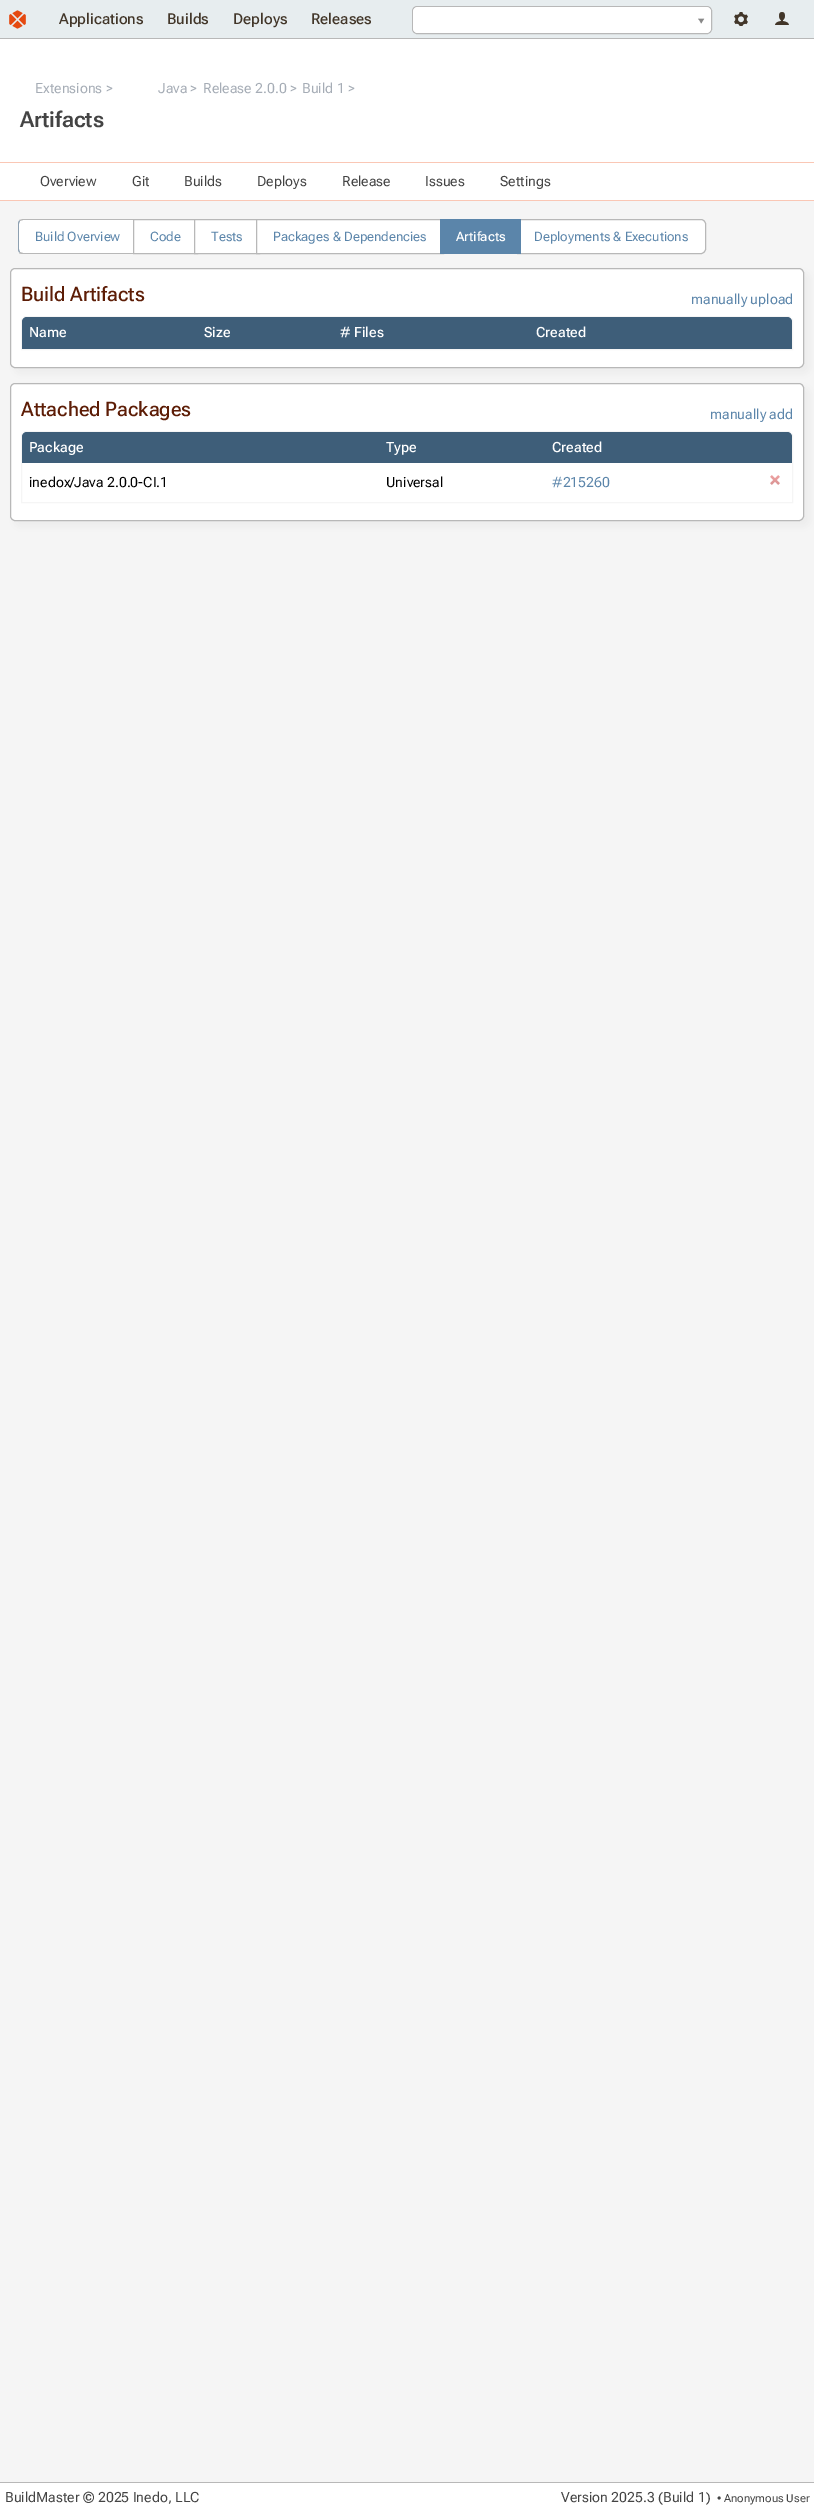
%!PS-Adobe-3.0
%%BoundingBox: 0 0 814 2513
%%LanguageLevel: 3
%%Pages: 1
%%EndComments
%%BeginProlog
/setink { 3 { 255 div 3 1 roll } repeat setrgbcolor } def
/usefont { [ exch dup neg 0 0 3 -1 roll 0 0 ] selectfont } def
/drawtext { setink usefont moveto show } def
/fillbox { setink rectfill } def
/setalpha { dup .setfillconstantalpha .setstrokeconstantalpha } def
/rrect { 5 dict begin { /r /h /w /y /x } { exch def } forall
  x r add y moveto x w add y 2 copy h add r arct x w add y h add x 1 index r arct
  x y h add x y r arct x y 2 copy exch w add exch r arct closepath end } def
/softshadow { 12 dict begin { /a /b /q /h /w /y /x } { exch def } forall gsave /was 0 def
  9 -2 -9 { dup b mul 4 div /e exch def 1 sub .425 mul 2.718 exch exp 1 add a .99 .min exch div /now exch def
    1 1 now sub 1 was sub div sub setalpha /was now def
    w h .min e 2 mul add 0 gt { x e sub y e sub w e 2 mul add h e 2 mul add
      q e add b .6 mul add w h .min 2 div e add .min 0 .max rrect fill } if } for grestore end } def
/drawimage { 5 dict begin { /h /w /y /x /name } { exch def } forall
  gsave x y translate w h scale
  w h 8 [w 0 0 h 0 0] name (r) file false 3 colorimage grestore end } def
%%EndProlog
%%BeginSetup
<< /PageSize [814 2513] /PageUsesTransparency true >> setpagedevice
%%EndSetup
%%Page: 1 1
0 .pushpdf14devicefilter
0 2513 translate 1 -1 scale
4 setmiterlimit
0 0 814 2513 245 245 245 fillbox
0 0 814 38 231 237 239 fillbox
235 235 235 setink
0 43 814 125 0 5 1 softshadow
(assets/img1.rgb) 9 10 17 19 drawimage
(Applications) 59 24 /RobotoFlex-Medium 15 66 54 41 drawtext
(Builds) 167 24 /RobotoFlex-Medium 15 66 54 41 drawtext
(Deploys) 233 24 /RobotoFlex-Medium 15 66 54 41 drawtext
(Releases) 311 24 /RobotoFlex-Medium 15 66 54 41 drawtext
255 255 255 setink
412.5 6.5 299 27 4.5 rrect gsave fill grestore
184 184 184 setink
stroke
255 255 255 setink
413 7 298 26 5 rrect fill
(assets/img2.rgb) 698 18 7 6 drawimage
(assets/img3.rgb) 734 12 14 14 drawimage
(assets/img4.rgb) 775 12 14 13 drawimage
0 39 814 123 255 255 255 fillbox
0 38 814 1 184 184 184 fillbox
0 162 814 1 250 199 181 fillbox
(Extensions >) 35 93 /RobotoFlex-Regular 14 166 173 182 drawtext
(Java >) 158 93 /RobotoFlex-Regular 14 166 173 182 drawtext
(Release 2.0.0 >) 203 93 /RobotoFlex-Regular 14 166 173 182 drawtext
(Build 1 >) 302 93 /RobotoFlex-Regular 14 166 173 182 drawtext
(Artifacts) 20 127 /RobotoFlex-SemiBold 22 68 68 68 drawtext
0 163 814 37 255 255 255 fillbox
0 200 814 1 250 199 181 fillbox
(Overview) 40 186 /RobotoFlex-Regular 14 68 68 68 drawtext
(Git) 132 186 /RobotoFlex-Regular 14 68 68 68 drawtext
(Builds) 184 186 /RobotoFlex-Regular 14 68 68 68 drawtext
(Deploys) 257 186 /RobotoFlex-Regular 14 68 68 68 drawtext
(Release) 342 186 /RobotoFlex-Regular 14 68 68 68 drawtext
(Issues) 425 186 /RobotoFlex-Regular 14 68 68 68 drawtext
(Settings) 500 186 /RobotoFlex-Regular 14 68 68 68 drawtext
255 255 255 setink
23 219 moveto 137 219 lineto 137 254 lineto 23 254 lineto 20 254 18 252 18 249 curveto 18 224 lineto 18 221 20 219 23 219 curveto closepath fill
184 184 184 setink
23 219 moveto 22 219 20 220 19 220 curveto 20 221 lineto 23 220 lineto 136 220 lineto 137 219 lineto closepath fill
137 254 moveto 136 253 lineto 23 253 lineto 20 252 lineto 19 253 lineto 20 254 22 254 23 254 curveto closepath fill
141 160 177 setink
18 224 moveto 18 249 lineto 18 250.5 18.5 252 19.5 252.5 curveto 20 252 lineto 19.5 251 19 250 19 249 curveto 19 224 lineto 19 223 19.5 222 20 221 curveto 19.5 220.5 lineto 18.5 221 18 222.5 18 224 curveto closepath fill
(Build Overview) 35 241 /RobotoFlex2-Regular 13 91 133 170 drawtext
137 220 57 33 255 255 255 fillbox
184 184 184 setink
133.5 219.5 64 34 rectstroke
(Code) 150 241 /RobotoFlex2-Regular 13 91 133 170 drawtext
195 220 61 33 255 255 255 fillbox
184 184 184 setink
194.5 219.5 65 34 rectstroke
(Tests) 211 241 /RobotoFlex2-Regular 13 91 133 170 drawtext
257 220 183 33 255 255 255 fillbox
184 184 184 setink
256.5 219.5 187 34 rectstroke
(Packages & Dependencies) 273 241 /RobotoFlex2-Regular 13 91 133 170 drawtext
255 255 255 setink
517.5 219.5 moveto 701 219.5 lineto 703.5 219.5 705.5 221.5 705.5 224 curveto 705.5 249 lineto 705.5 251.5 703.5 253.5 701 253.5 curveto 517.5 253.5 lineto closepath gsave fill grestore
184 184 184 setink
stroke
440 219 81 35 91 133 170 fillbox
(Artifacts) 456 241 /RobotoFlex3-Medium 13 255 255 255 drawtext
(Deployments & Executions) 534 241 /RobotoFlex2-Regular 13 91 133 170 drawtext
235 235 235 setink
15 273 794 100 5 5 1 softshadow
255 255 255 setink
10.5 268.5 793 99 4.5 rrect gsave fill grestore
184 184 184 setink
stroke
(Build Artifacts) 21 301 /RobotoFlex2-Medium 20 93 29 6 drawtext
(manually upload) 691 304 /RobotoFlex-Regular 14 91 133 170 drawtext
245 245 245 setink
26 316.5 moveto 788 316.5 lineto 790.5 316.5 792.5 318.5 792.5 321 curveto 792.5 349.5 lineto 21.5 349.5 lineto 21.5 321 lineto 21.5 318.5 23.5 316.5 26 316.5 curveto closepath stroke
22 317 770 3 255 255 255 fillbox
62 94 121 setink
27 317 moveto 197 317 lineto 197 349 lineto 22 349 lineto 22 322 lineto 22 319 24 317 27 317 curveto closepath fill
(Name) 29 337 /RobotoFlex-Medium 14 255 255 255 drawtext
197 317 548 32 62 94 121 fillbox
(Size) 204 337 /RobotoFlex-Medium 14 255 255 255 drawtext
(# Files) 340 337 /RobotoFlex-Medium 14 255 255 255 drawtext
(Created) 536 337 /RobotoFlex-Medium 14 255 255 255 drawtext
62 94 121 setink
745 317 moveto 787 317 lineto 790 317 792 319 792 322 curveto 792 349 lineto 745 349 lineto closepath fill
235 235 235 setink
15 388 794 138 5 5 1 softshadow
255 255 255 setink
10.5 383.5 793 137 4.5 rrect gsave fill grestore
184 184 184 setink
stroke
(Attached Packages) 21 416 /RobotoFlex2-Medium 20 93 29 6 drawtext
(manually add) 710 419 /RobotoFlex-Regular 14 91 133 170 drawtext
245 245 245 setink
26 431.5 moveto 788 431.5 lineto 790.5 431.5 792.5 433.5 792.5 436 curveto 792.5 502.5 lineto 21.5 502.5 lineto 21.5 436 lineto 21.5 433.5 23.5 431.5 26 431.5 curveto closepath stroke
22 432 770 3 255 255 255 fillbox
62 94 121 setink
27 432 moveto 379 432 lineto 379 463 lineto 22 463 lineto 22 437 lineto 22 434 24 432 27 432 curveto closepath fill
(Package) 29 452 /RobotoFlex-Medium 14 255 255 255 drawtext
379 432 334 31 62 94 121 fillbox
(Type) 386 452 /RobotoFlex-Medium 14 255 255 255 drawtext
(Created) 552 452 /RobotoFlex-Medium 14 255 255 255 drawtext
62 94 121 setink
713 432 moveto 787 432 lineto 790 432 792 434 792 437 curveto 792 463 lineto 713 463 lineto closepath fill
(inedox/Java 2.0.0-CI.1) 29 487 /RobotoFlex-Regular 14 0 0 0 drawtext
(Universal) 386 487 /RobotoFlex-Regular 14 0 0 0 drawtext
(#215260) 552 487 /RobotoFlex-Regular 14 91 133 170 drawtext
(assets/img5.rgb) 770 475 10 10 drawimage
0 2483 814 30 255 255 255 fillbox
0 2482 814 1 184 184 184 fillbox
(BuildMaster © 2025 Inedo, LLC) 5 2502 /RobotoFlex-Regular 14 68 68 68 drawtext
(Version 2025.3 \(Build 1\)) 561 2502 /RobotoFlex-Regular 14 68 68 68 drawtext
(• Anonymous User) 717 2502 /RobotoFlex3-Regular 11 68 68 68 drawtext
.poppdf14devicefilter showpage
%%EOF
